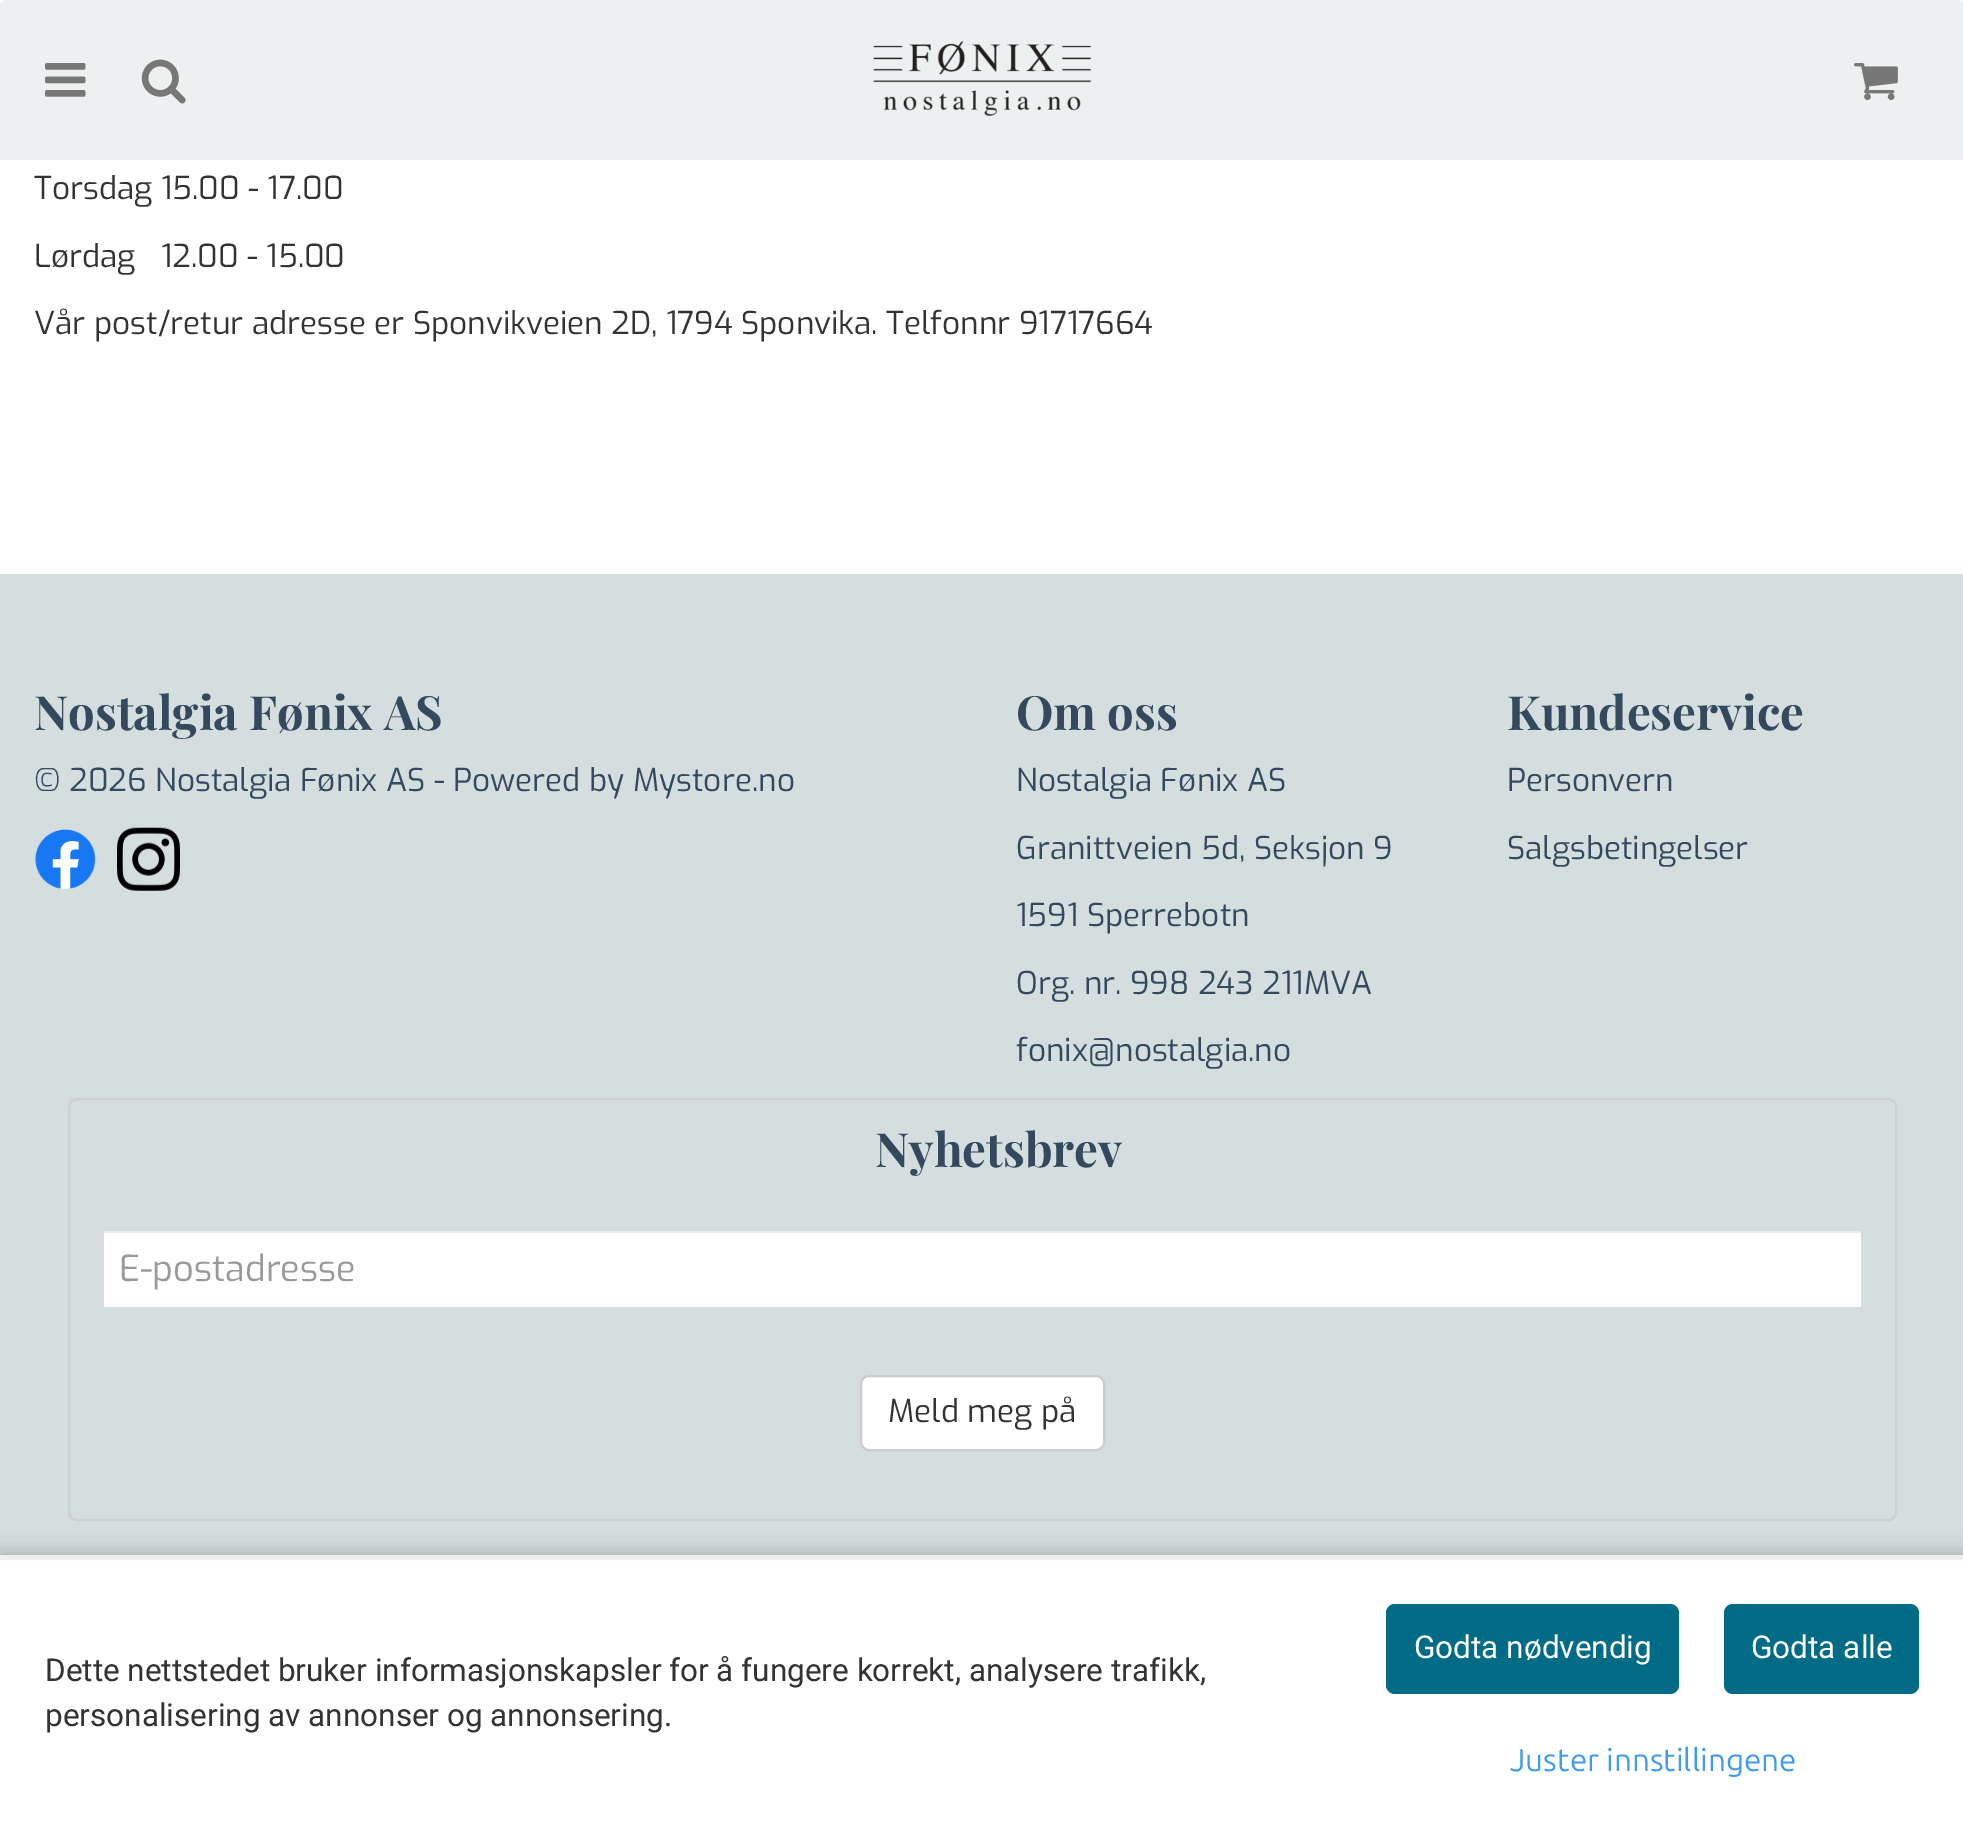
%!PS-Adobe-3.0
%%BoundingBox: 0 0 1963 1829
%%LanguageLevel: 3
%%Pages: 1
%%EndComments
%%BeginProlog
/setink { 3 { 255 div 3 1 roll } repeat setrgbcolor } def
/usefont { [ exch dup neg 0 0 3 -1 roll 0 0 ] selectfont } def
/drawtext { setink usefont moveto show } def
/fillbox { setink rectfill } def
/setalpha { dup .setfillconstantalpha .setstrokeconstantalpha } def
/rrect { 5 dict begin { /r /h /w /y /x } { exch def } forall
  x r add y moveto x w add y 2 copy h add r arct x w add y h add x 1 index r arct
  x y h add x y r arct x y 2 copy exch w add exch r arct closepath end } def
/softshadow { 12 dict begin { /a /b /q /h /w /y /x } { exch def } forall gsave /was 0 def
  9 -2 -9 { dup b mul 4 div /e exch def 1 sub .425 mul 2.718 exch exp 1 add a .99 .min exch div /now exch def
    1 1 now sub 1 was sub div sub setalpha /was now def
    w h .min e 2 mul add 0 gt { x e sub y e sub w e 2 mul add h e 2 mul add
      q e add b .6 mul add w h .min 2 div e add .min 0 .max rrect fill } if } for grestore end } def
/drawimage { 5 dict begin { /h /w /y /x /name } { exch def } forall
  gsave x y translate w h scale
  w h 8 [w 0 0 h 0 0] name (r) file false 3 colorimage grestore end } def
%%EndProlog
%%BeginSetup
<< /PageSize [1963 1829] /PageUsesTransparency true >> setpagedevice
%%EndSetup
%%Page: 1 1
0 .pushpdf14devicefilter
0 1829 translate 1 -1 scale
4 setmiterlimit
0 0 1963 1829 255 255 255 fillbox
236 240 241 setink
7 0 moveto 1957 0 lineto 1961 0 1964 3 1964 7 curveto 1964 160 lineto 0 160 lineto 0 7 lineto 0 3 3 0 7 0 curveto closepath fill
(assets/img1.rgb) 45 63 41 34 drawimage
(assets/img2.rgb) 141 59 45 45 drawimage
(assets/img3.rgb) 873 41 219 76 drawimage
(assets/img4.rgb) 1854 63 44 38 drawimage
(Torsdag 15.00 - 17.00) 34 199 /Exo-Regular 31.5 51 51 51 drawtext
(Lørdag   12.00 - 15.00) 34 267 /Exo-Regular 31.5 51 51 51 drawtext
(Vår post/retur adresse er Sponvikveien 2D, 1794 Sponvika. Telfonnr 91717664) 34 334 /Exo-Regular 31.5 51 51 51 drawtext
0 574 1963 981 212 222 222 fillbox
(Nostalgia Fønix AS) 34 730 /PlayfairDisplay-Bold 47.25 52 73 94 drawtext
(© 2026 Nostalgia Fønix AS - Powered by Mystore.no) 34 791 /Exo-Regular 31.5 52 73 94 drawtext
(assets/img5.rgb) 35 829 61 60 drawimage
(assets/img6.rgb) 117 827 63 64 drawimage
(Om oss) 1016 730 /PlayfairDisplay-Bold 47.25 52 73 94 drawtext
(Nostalgia Fønix AS) 1016 791 /Exo-Regular 31.5 52 73 94 drawtext
(Granittveien 5d, Seksjon 9) 1016 859 /Exo-Regular 31.5 52 73 94 drawtext
(1591 Sperrebotn) 1016 926 /Exo-Regular 31.5 52 73 94 drawtext
(Org. nr. 998 243 211MVA) 1016 994 /Exo-Regular 31.5 52 73 94 drawtext
(fonix@nostalgia.no) 1016 1061 /Exo-Regular 31.5 52 73 94 drawtext
(Kundeservice) 1507 730 /PlayfairDisplay-Bold 47.25 52 73 94 drawtext
(Personvern) 1507 791 /Exo-Regular 31.5 52 73 94 drawtext
(Salgsbetingelser) 1507 859 /Exo-Regular 31.5 52 73 94 drawtext
205 208 209 setink
2 setlinewidth
69 1099 1827 421 8 rrect stroke
(Nyhetsbrev) 875 1167 /PlayfairDisplay-Bold 47.25 52 73 94 drawtext
104 1233 1757 74 255 255 255 fillbox
104 1231 1757 2 236 236 236 fillbox
(E-postadresse) 119 1281 /Exo-Regular 36 153 153 153 drawtext
255 255 255 setink
861 1376 243 74 8 rrect gsave fill grestore
204 204 204 setink
stroke
(Meld meg på) 888 1422 /Exo-Regular 31.5 51 51 51 drawtext
0 0 0 setink
0 1555 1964 274 0 11 0.25 softshadow
0 1560 1963 269 255 255 255 fillbox
0 1555 1963 5 238 238 238 fillbox
(Dette nettstedet bruker informasjonskapsler for å fungere korrekt, analysere trafikk,) 45 1681 /Roboto-Regular 31.5 51 51 51 drawtext
(personalisering av annonser og annonsering.) 45 1726 /Roboto-Regular 31.5 51 51 51 drawtext
2 107 133 setink
1386 1604 293 90 9 rrect fill
(Godta nødvendig) 1414 1658 /Roboto-Regular 31.5 255 255 255 drawtext
2 107 133 setink
1724 1604 195 90 9 rrect fill
(Godta alle) 1751 1658 /Roboto-Regular 31.5 255 255 255 drawtext
(Juster innstillingene) 1510 1771 /Ubuntu-Regular 31.5 64 154 239 drawtext
.poppdf14devicefilter showpage
%%EOF
